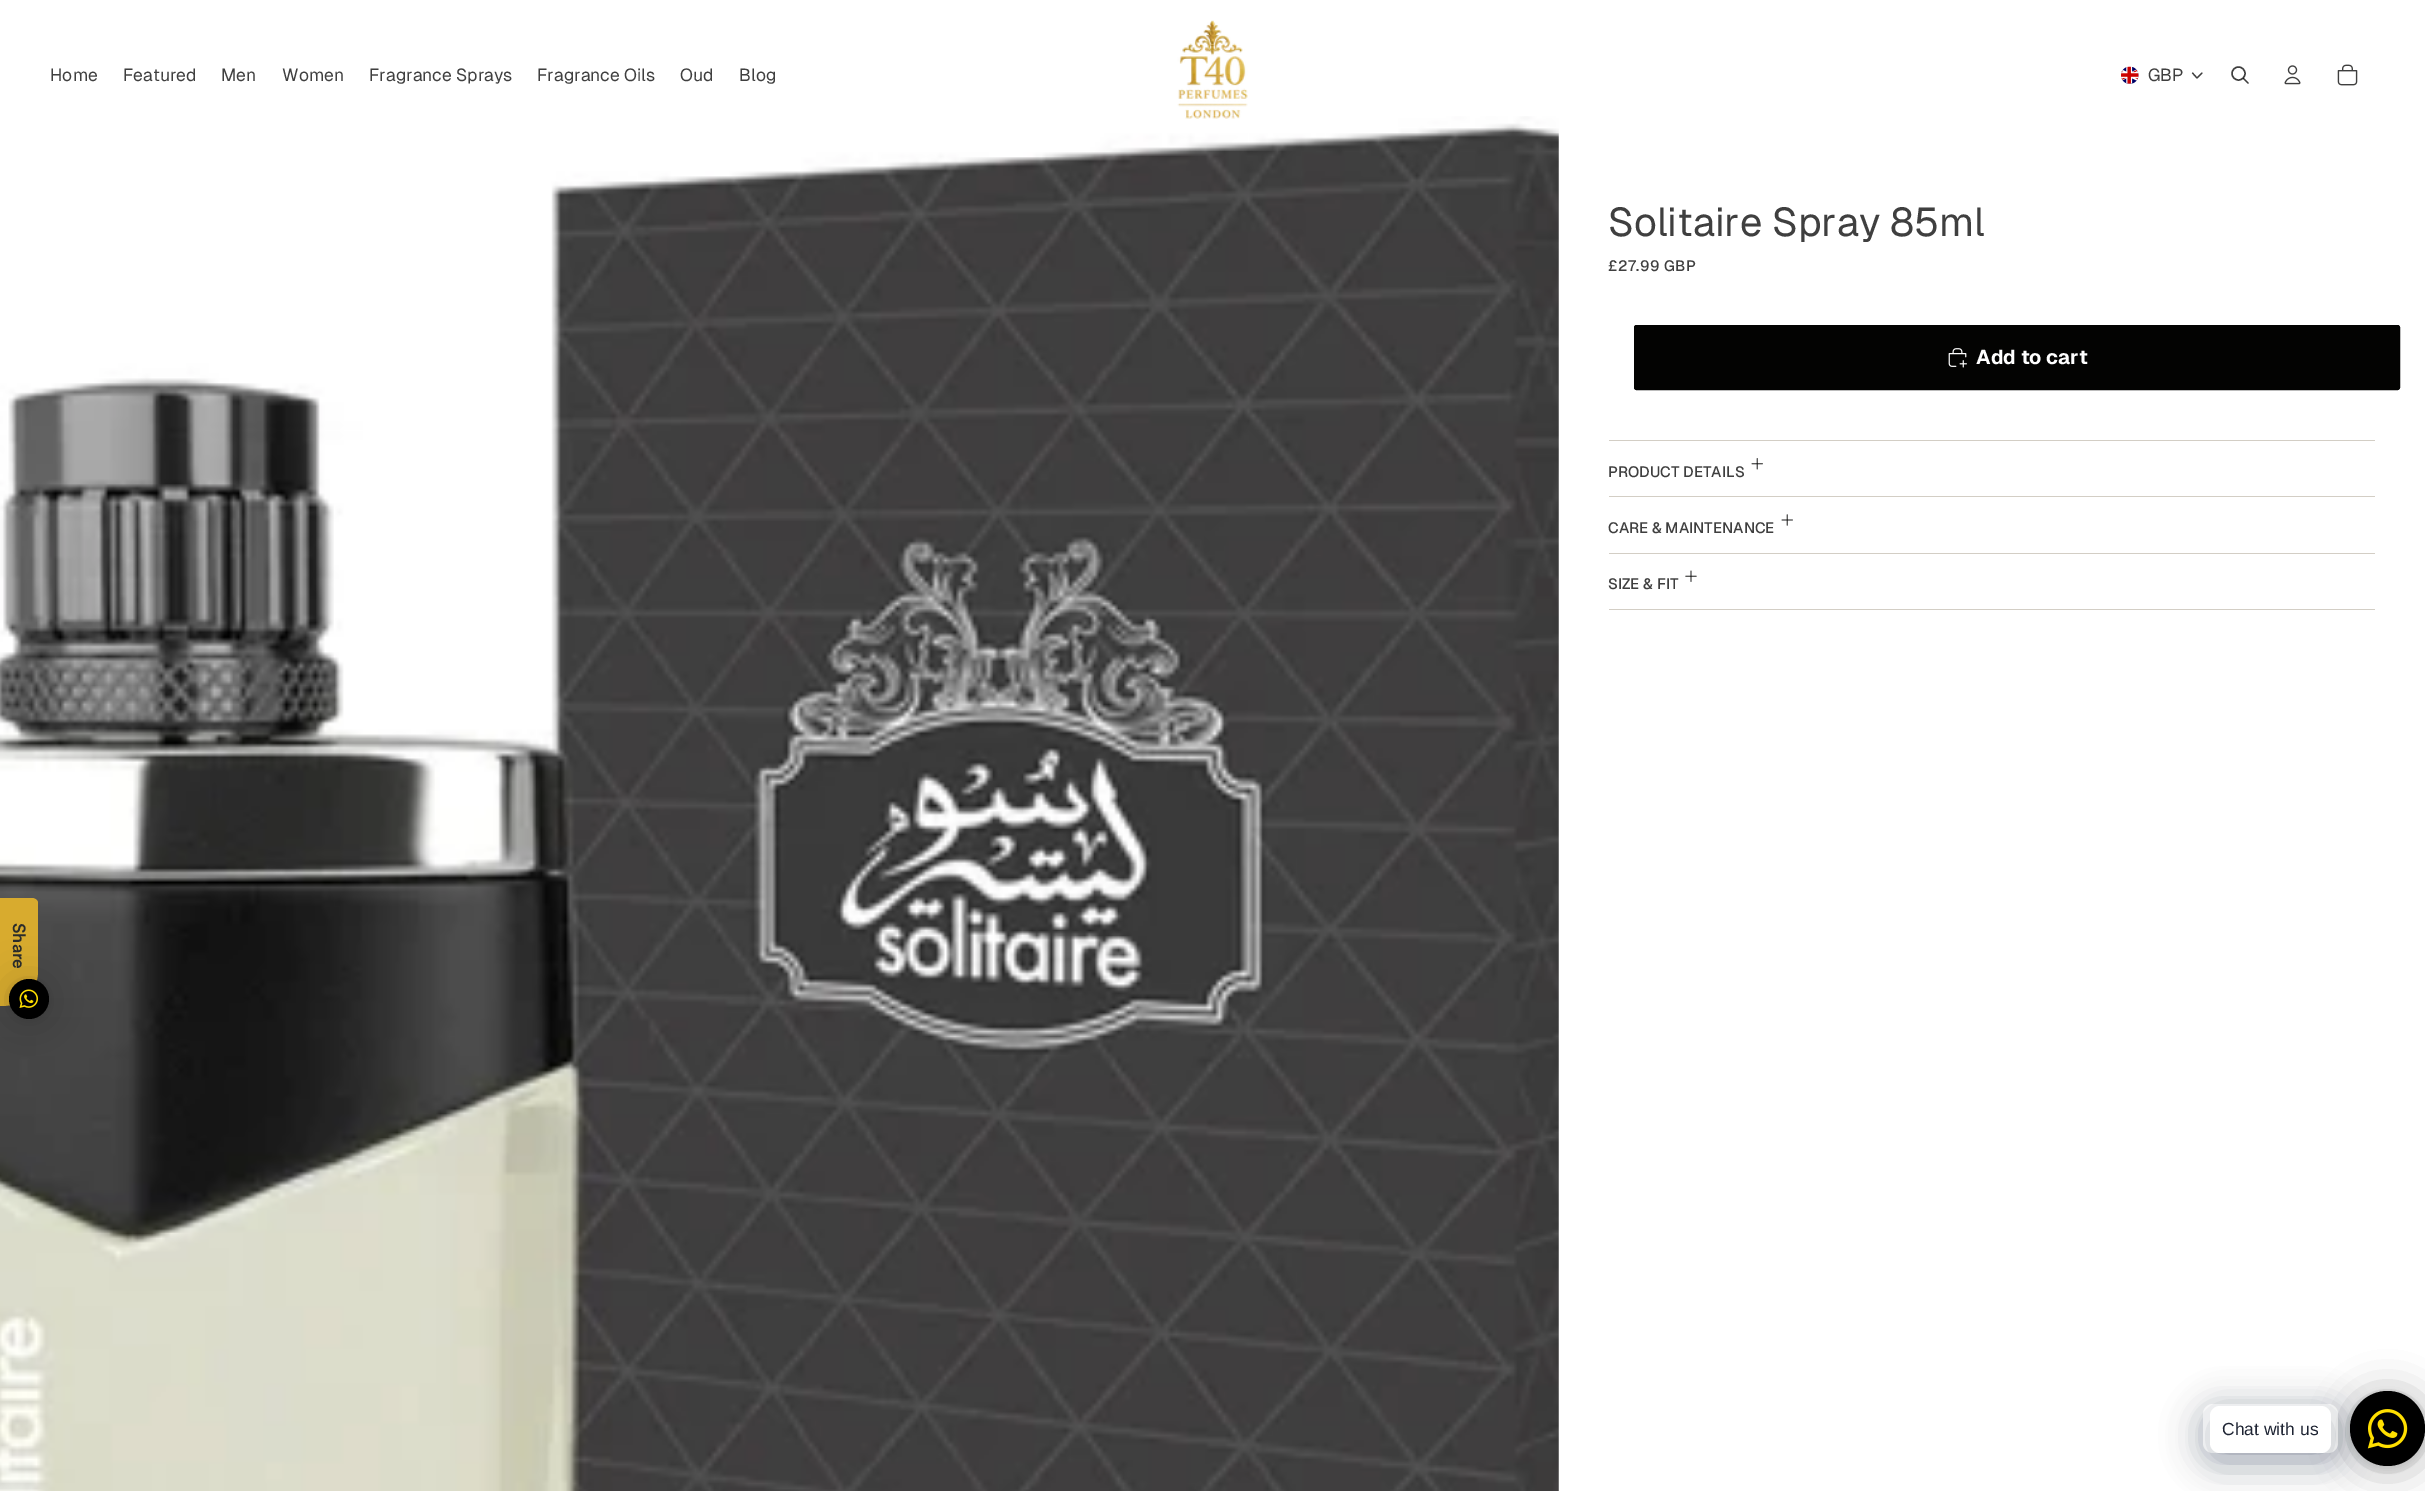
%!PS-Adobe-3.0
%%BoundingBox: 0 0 2425 1491
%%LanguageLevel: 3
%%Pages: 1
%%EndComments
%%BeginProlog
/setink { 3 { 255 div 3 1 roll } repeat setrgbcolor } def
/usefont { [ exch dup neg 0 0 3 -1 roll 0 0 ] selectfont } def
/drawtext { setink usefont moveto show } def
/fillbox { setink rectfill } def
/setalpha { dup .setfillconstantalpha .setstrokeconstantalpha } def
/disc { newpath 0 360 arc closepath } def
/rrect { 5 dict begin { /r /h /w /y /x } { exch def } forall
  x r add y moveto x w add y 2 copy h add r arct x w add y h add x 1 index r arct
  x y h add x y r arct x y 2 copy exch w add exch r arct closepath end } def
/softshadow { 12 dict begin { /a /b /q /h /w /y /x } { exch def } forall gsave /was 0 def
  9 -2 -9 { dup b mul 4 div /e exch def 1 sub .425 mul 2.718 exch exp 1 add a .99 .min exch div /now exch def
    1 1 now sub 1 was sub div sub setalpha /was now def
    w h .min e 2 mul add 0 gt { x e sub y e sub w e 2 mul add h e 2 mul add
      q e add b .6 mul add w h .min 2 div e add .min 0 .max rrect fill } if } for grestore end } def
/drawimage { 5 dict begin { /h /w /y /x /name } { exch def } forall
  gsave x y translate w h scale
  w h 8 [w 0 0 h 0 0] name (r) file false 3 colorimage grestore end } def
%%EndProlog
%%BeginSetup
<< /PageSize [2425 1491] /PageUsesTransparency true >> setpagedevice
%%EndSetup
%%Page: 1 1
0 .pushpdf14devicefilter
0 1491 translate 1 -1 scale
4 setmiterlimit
0 0 2425 1491 255 255 255 fillbox
(Home) 50 81 /Geist-Regular 17.5 63 63 63 drawtext
(Featured) 123 81 /Geist-Regular 17.5 63 63 63 drawtext
(Men) 221 81 /Geist-Regular 17.5 63 63 63 drawtext
(Women) 282 81 /Geist-Regular 17.5 63 63 63 drawtext
(Fragrance Sprays) 369 81 /Geist-Regular 17.5 63 63 63 drawtext
(Fragrance Oils) 537 81 /Geist-Regular 17.5 63 63 63 drawtext
(Oud) 680 81 /Geist-Regular 17.5 63 63 63 drawtext
(Blog) 739 81 /Geist-Regular 17.5 63 63 63 drawtext
(assets/img5.rgb) 0 116 1559 1375 drawimage
(assets/img1.rgb) 1177 20 71 99 drawimage
(assets/img2.rgb) 2121 66 18 18 drawimage
(GBP) 2148 81 /Geist-Regular 17.5 63 63 63 drawtext
1.2 setlinewidth
1 setlinecap
1 setlinejoin
2202 73 moveto 2197 78 lineto 2192.5 73 lineto stroke
1.4 setlinewidth
0 setlinecap
0 setlinejoin
2238.5 73.5 6.5 disc stroke
0.76 setalpha
3 3 2 setink
1 setlinecap
1 setlinejoin
2243.5 78.5 moveto 2248 83 lineto stroke
1 setalpha
(assets/img3.rgb) 2284 65 17 20 drawimage
(assets/img4.rgb) 2337 64 21 22 drawimage
(Solitaire Spray 85ml) 1608 236 /Geist-Regular 40 63 63 63 drawtext
/Geist-Medium 15 usefont
1608 271 moveto 0.5 0 (£27.99 GBP) ashow
3 3 2 setink
1634.5 325.5 765 64 2 rrect gsave fill grestore
1 setlinewidth
0 setlinecap
0 setlinejoin
stroke
(assets/img6.rgb) 1948 348 19 20 drawimage
(Add to cart) 1976 364 /Geist-Bold 20 255 255 255 drawtext
1609 440 766 1 211 206 197 fillbox
(assets/img7.rgb) 1751 458 12 12 drawimage
(PRODUCT DETAILS) 1608 477 /Geist-Medium 15 63 63 63 drawtext
1609 496 766 1 211 206 197 fillbox
(assets/img8.rgb) 1781 514 12 12 drawimage
(CARE & MAINTENANCE) 1608 533 /Geist-Medium 15 63 63 63 drawtext
1609 553 766 1 211 206 197 fillbox
1609 609 766 1 211 206 197 fillbox
(assets/img9.rgb) 1685 570 12 12 drawimage
(SIZE & FIT) 1608 589 /Geist-Medium 15 63 63 63 drawtext
216 171 46 setink
0 1006 moveto 0 898 lineto 32 898 lineto 35 898 38 900 38 903 curveto 38 971 lineto 38 991 22 1006 2 1006 curveto closepath fill
0 0 0 setink
9 981 40 40 20 20 0.16 softshadow
9 980 40 40 20 4 0.06 softshadow
29 999 20 disc fill
(assets/img10.rgb) 19 989 19 19 drawimage
/Circular-Medium 17.5 usefont
42 44 43 setink
gsave 13 923 translate 90 rotate 0 0 moveto (Share) show grestore
0 0 0 setink
2350 1394 75 75 37.5 20 0.16 softshadow
2350 1393 75 75 37.5 4 0.06 softshadow
0 18 46 setink
2203 1411 135 49 10 20 0.24 softshadow
255 255 255 setink
2203 1404 135 49 10 rrect fill
0 0 0 setink
2350 1394 75 75 37.5 20 0.16 softshadow
2350 1393 75 75 37.5 4 0.06 softshadow
2387.5 1428.5 37.5 disc fill
0 18 46 setink
2210 1414 121 46 10 20 0.24 softshadow
255 255 255 setink
2210 1406 121 47 10 rrect fill
(Chat with us) 2222 1435 /LiberationSans-Regular 17.5 30 36 51 drawtext
(assets/img11.rgb) 2367 1409 41 40 drawimage
.poppdf14devicefilter showpage
%%EOF
